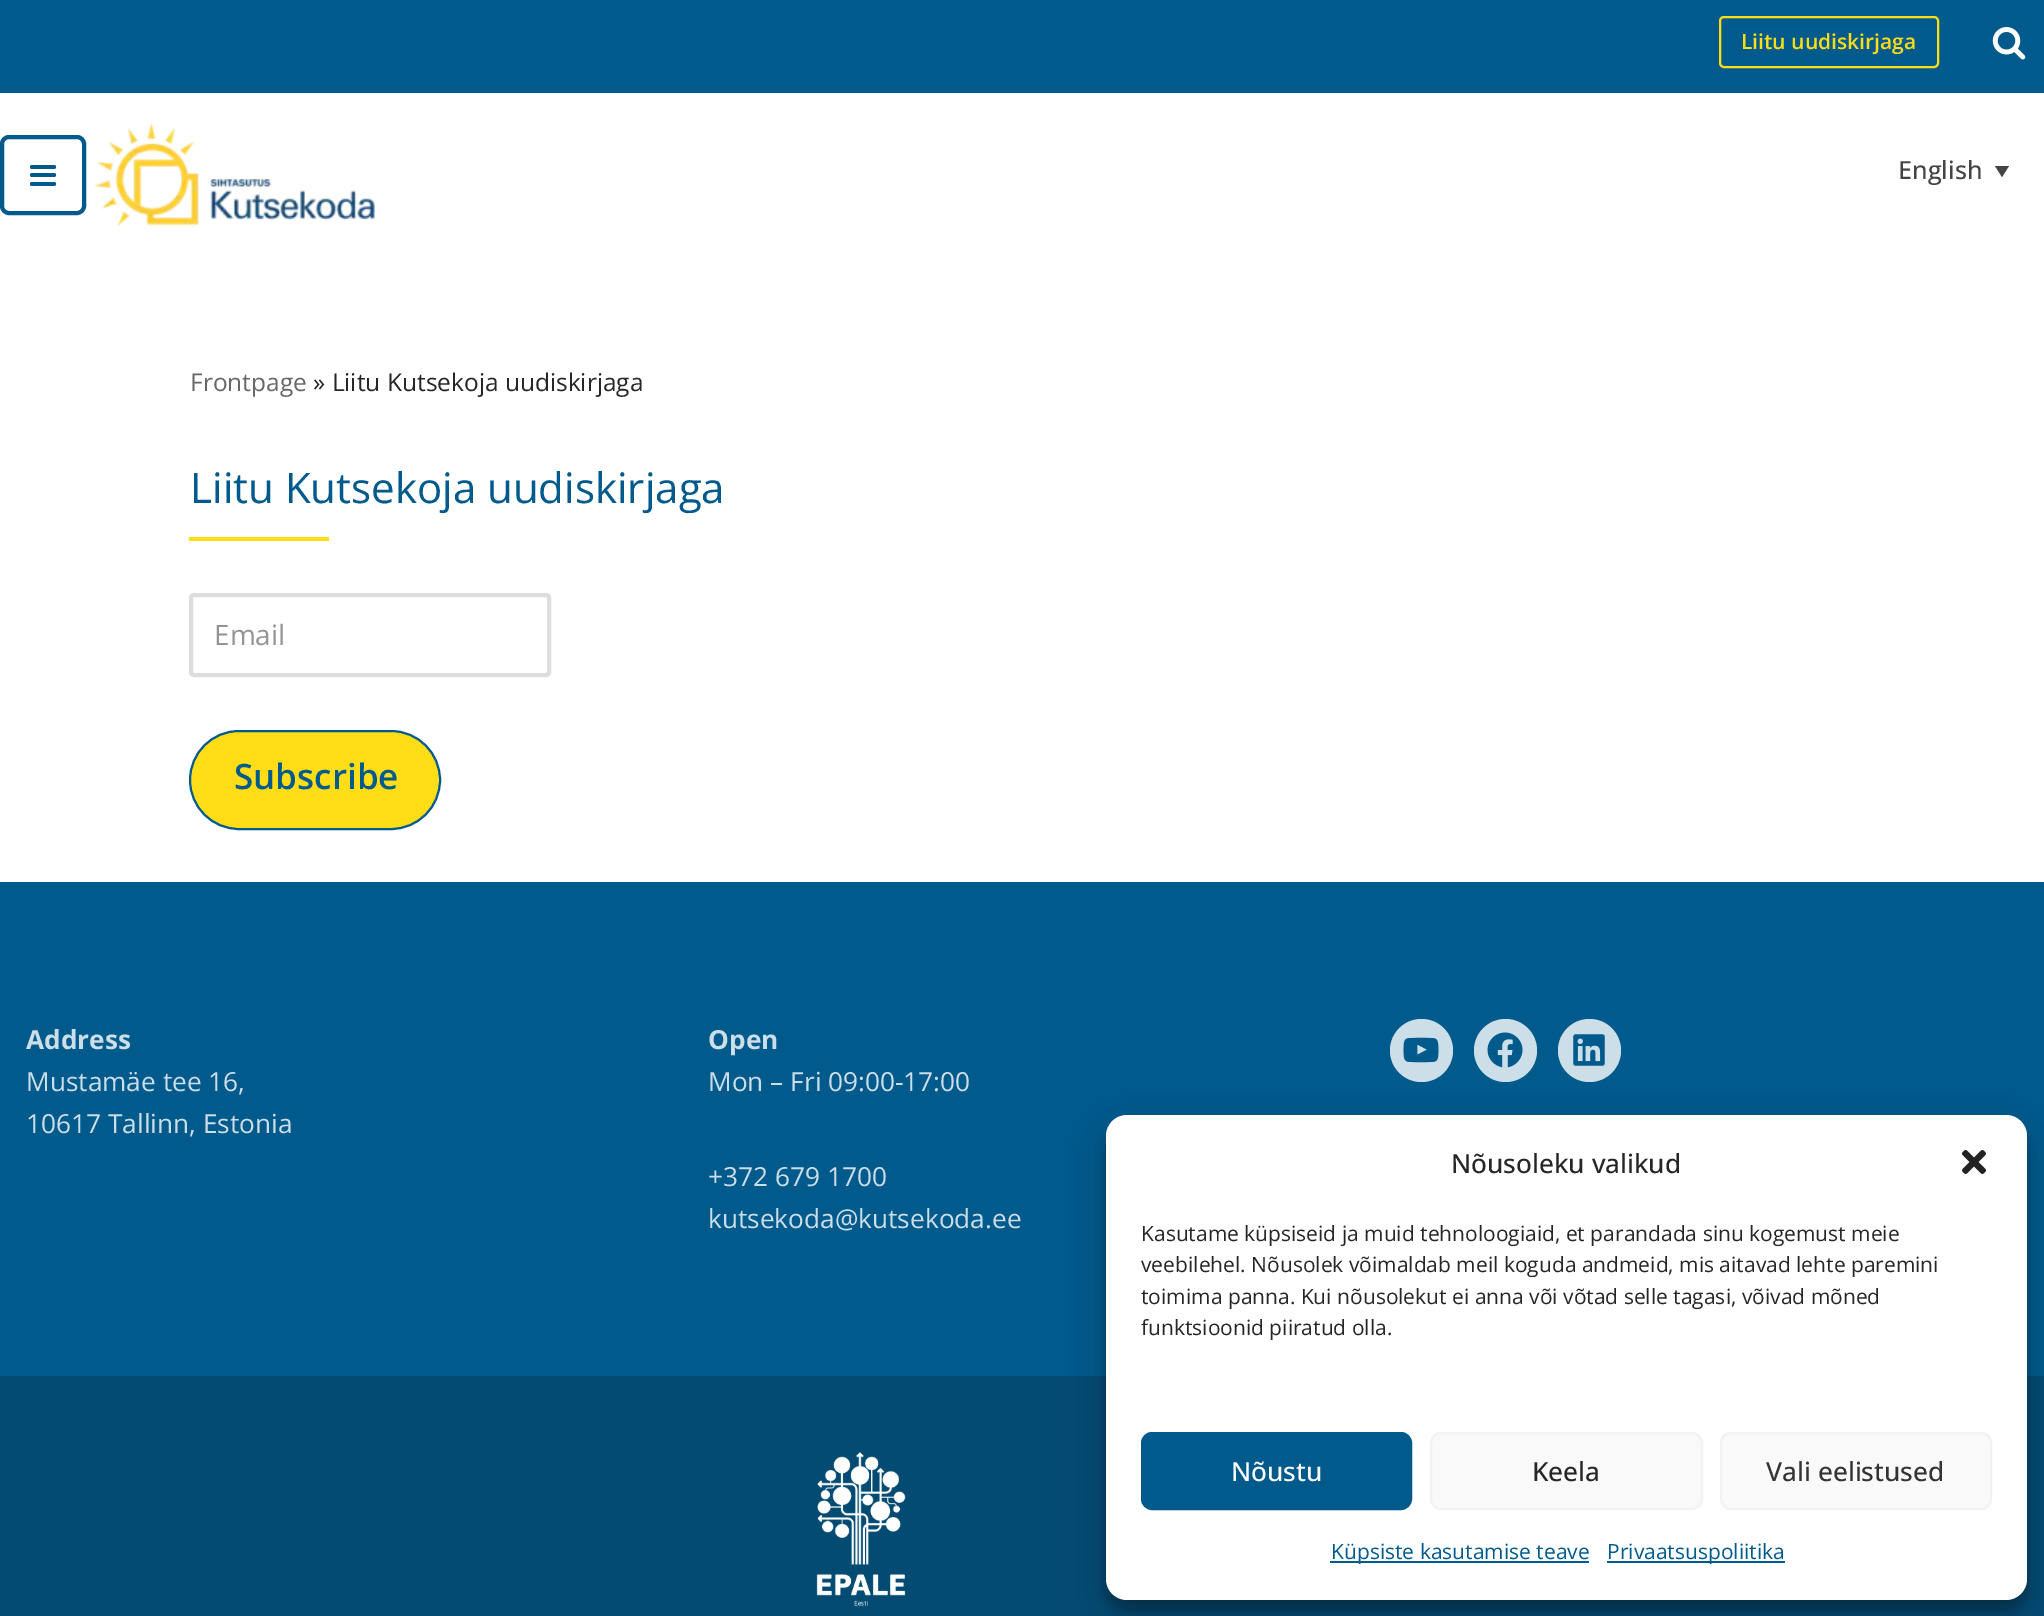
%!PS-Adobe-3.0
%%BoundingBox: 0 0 2044 1616
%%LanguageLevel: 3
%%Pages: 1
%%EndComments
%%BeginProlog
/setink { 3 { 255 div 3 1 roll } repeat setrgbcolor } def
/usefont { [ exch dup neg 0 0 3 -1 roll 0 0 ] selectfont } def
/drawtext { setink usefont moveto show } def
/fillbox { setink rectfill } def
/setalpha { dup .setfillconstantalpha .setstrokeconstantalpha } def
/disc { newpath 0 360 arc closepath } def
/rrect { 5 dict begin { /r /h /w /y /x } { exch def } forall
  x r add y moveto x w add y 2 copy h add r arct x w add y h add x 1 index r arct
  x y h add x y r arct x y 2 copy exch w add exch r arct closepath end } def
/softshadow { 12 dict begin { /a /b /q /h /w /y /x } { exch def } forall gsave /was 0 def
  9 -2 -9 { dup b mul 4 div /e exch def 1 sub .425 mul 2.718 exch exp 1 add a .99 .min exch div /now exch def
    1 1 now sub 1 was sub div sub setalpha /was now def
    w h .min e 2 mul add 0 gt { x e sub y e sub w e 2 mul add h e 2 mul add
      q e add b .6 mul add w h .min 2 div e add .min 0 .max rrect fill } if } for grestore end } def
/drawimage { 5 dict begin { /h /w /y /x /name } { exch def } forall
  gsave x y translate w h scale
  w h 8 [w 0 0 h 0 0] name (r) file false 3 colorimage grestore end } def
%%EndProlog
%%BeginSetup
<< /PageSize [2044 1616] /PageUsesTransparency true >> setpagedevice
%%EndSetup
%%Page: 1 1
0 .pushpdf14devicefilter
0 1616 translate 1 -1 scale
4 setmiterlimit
0 0 2044 1616 255 255 255 fillbox
0 0 2044 93 0 90 140 fillbox
255 222 23 setink
2 setlinewidth
1720 17 218 50 4 rrect stroke
(Liitu uudiskirjaga) 1741 49 /OpenSans-SemiBold 21 255 222 23 drawtext
(assets/img1.rgb) 1992 27 34 33 drawimage
0 90 140 setink
4 setlinewidth
2 137 82 76 7 rrect stroke
30 173 26 4 2 rrect fill
30 165 26 4 2 rrect fill
30 182 26 4 2 rrect fill
(assets/img2.rgb) 94 124 281 102 drawimage
(English) 1898 179 /OpenSans-Medium 25 68 68 68 drawtext
1995 166 moveto 2009 166 lineto 2002 177 lineto closepath fill
(Frontpage) 190 391 /OpenSans-Regular 24.5 103 103 103 drawtext
(» Liitu Kutsekoja uudiskirjaga) 313 391 /OpenSans-Regular 24.5 39 38 38 drawtext
(Liitu Kutsekoja uudiskirjaga) 190 503 /OpenSans-Regular 42 0 90 140 drawtext
189 537 140 4 255 222 23 fillbox
221 221 221 setink
191 595 358 80 3 rrect stroke
(Email) 214 645 /OpenSans-Regular 28 147 147 147 drawtext
255 222 23 setink
190 731 250 98 49 rrect gsave fill grestore
0 90 140 setink
2 setlinewidth
stroke
(Subscribe) 234 789 /OpenSans-SemiBold 35 0 90 140 drawtext
0 882 2044 494 0 90 140 fillbox
(Address) 26 1049 /OpenSans-Bold 26.25 204 222 232 drawtext
(Mustamäe tee 16,) 26 1091 /OpenSans-Regular 26.25 204 222 232 drawtext
(10617 Tallinn, Estonia) 26 1133 /OpenSans-Regular 26.25 204 222 232 drawtext
(Open) 708 1049 /OpenSans-Bold 26.25 204 222 232 drawtext
(Mon – Fri 09:00-17:00) 708 1091 /OpenSans-Regular 26.25 204 222 232 drawtext
(+372 679 1700) 708 1186 /OpenSans-Regular 26.25 204 222 232 drawtext
(kutsekoda@kutsekoda.ee) 708 1228 /OpenSans-Regular 26.25 204 222 232 drawtext
1421.5 1050.5 31.5 disc fill
(assets/img3.rgb) 1403 1037 36 26 drawimage
1505.5 1050.5 31.5 disc fill
(assets/img4.rgb) 1487 1032 36 36 drawimage
1589.5 1050.5 31.5 disc fill
(assets/img5.rgb) 1573 1034 32 32 drawimage
0 1376 2044 240 4 75 115 fillbox
(assets/img6.rgb) 816 1452 90 154 drawimage
0 0 0 setink
1106 1125 921 485 21 5 0.23 softshadow
1106 1132 921 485 21 17.5 0.19 softshadow
255 255 255 setink
1106 1115 921 485 21 rrect fill
(Nõusoleku valikud) 1451 1173 /OpenSans-Medium 26.25 39 38 38 drawtext
(assets/img7.rgb) 1962 1150 24 24 drawimage
(Kasutame küpsiseid ja muid tehnoloogiaid, et parandada sinu kogemust meie) 1141 1241 /OpenSans-Regular 21 39 38 38 drawtext
(veebilehel. Nõusolek võimaldab meil koguda andmeid, mis aitavad lehte paremini) 1141 1272 /OpenSans-Regular 21 39 38 38 drawtext
(toimima panna. Kui nõusolekut ei anna või võtad selle tagasi, võivad mõned) 1141 1304 /OpenSans-Regular 21 39 38 38 drawtext
(funktsioonid piiratud olla.) 1141 1335 /OpenSans-Regular 21 39 38 38 drawtext
0 90 140 setink
1142 1433 269 76 10 rrect gsave fill grestore
stroke
(Nõustu) 1231 1481 /OpenSans-Medium 26.25 255 255 255 drawtext
249 249 249 setink
1431 1433 271 76 10 rrect gsave fill grestore
242 242 242 setink
stroke
(Keela) 1532 1481 /OpenSans-Medium 26.25 39 38 38 drawtext
249 249 249 setink
1721 1433 270 76 10 rrect gsave fill grestore
242 242 242 setink
stroke
(Vali eelistused) 1766 1481 /OpenSans-Medium 26.25 51 51 51 drawtext
1330 1561 259 2 0 90 140 fillbox
(Küpsiste kasutamise teave) 1331 1559 /OpenSans-Regular 21 0 90 140 drawtext
1607 1561 178 2 0 90 140 fillbox
(Privaatsuspoliitika) 1607 1559 /OpenSans-Regular 21 0 90 140 drawtext
.poppdf14devicefilter showpage
%%EOF
